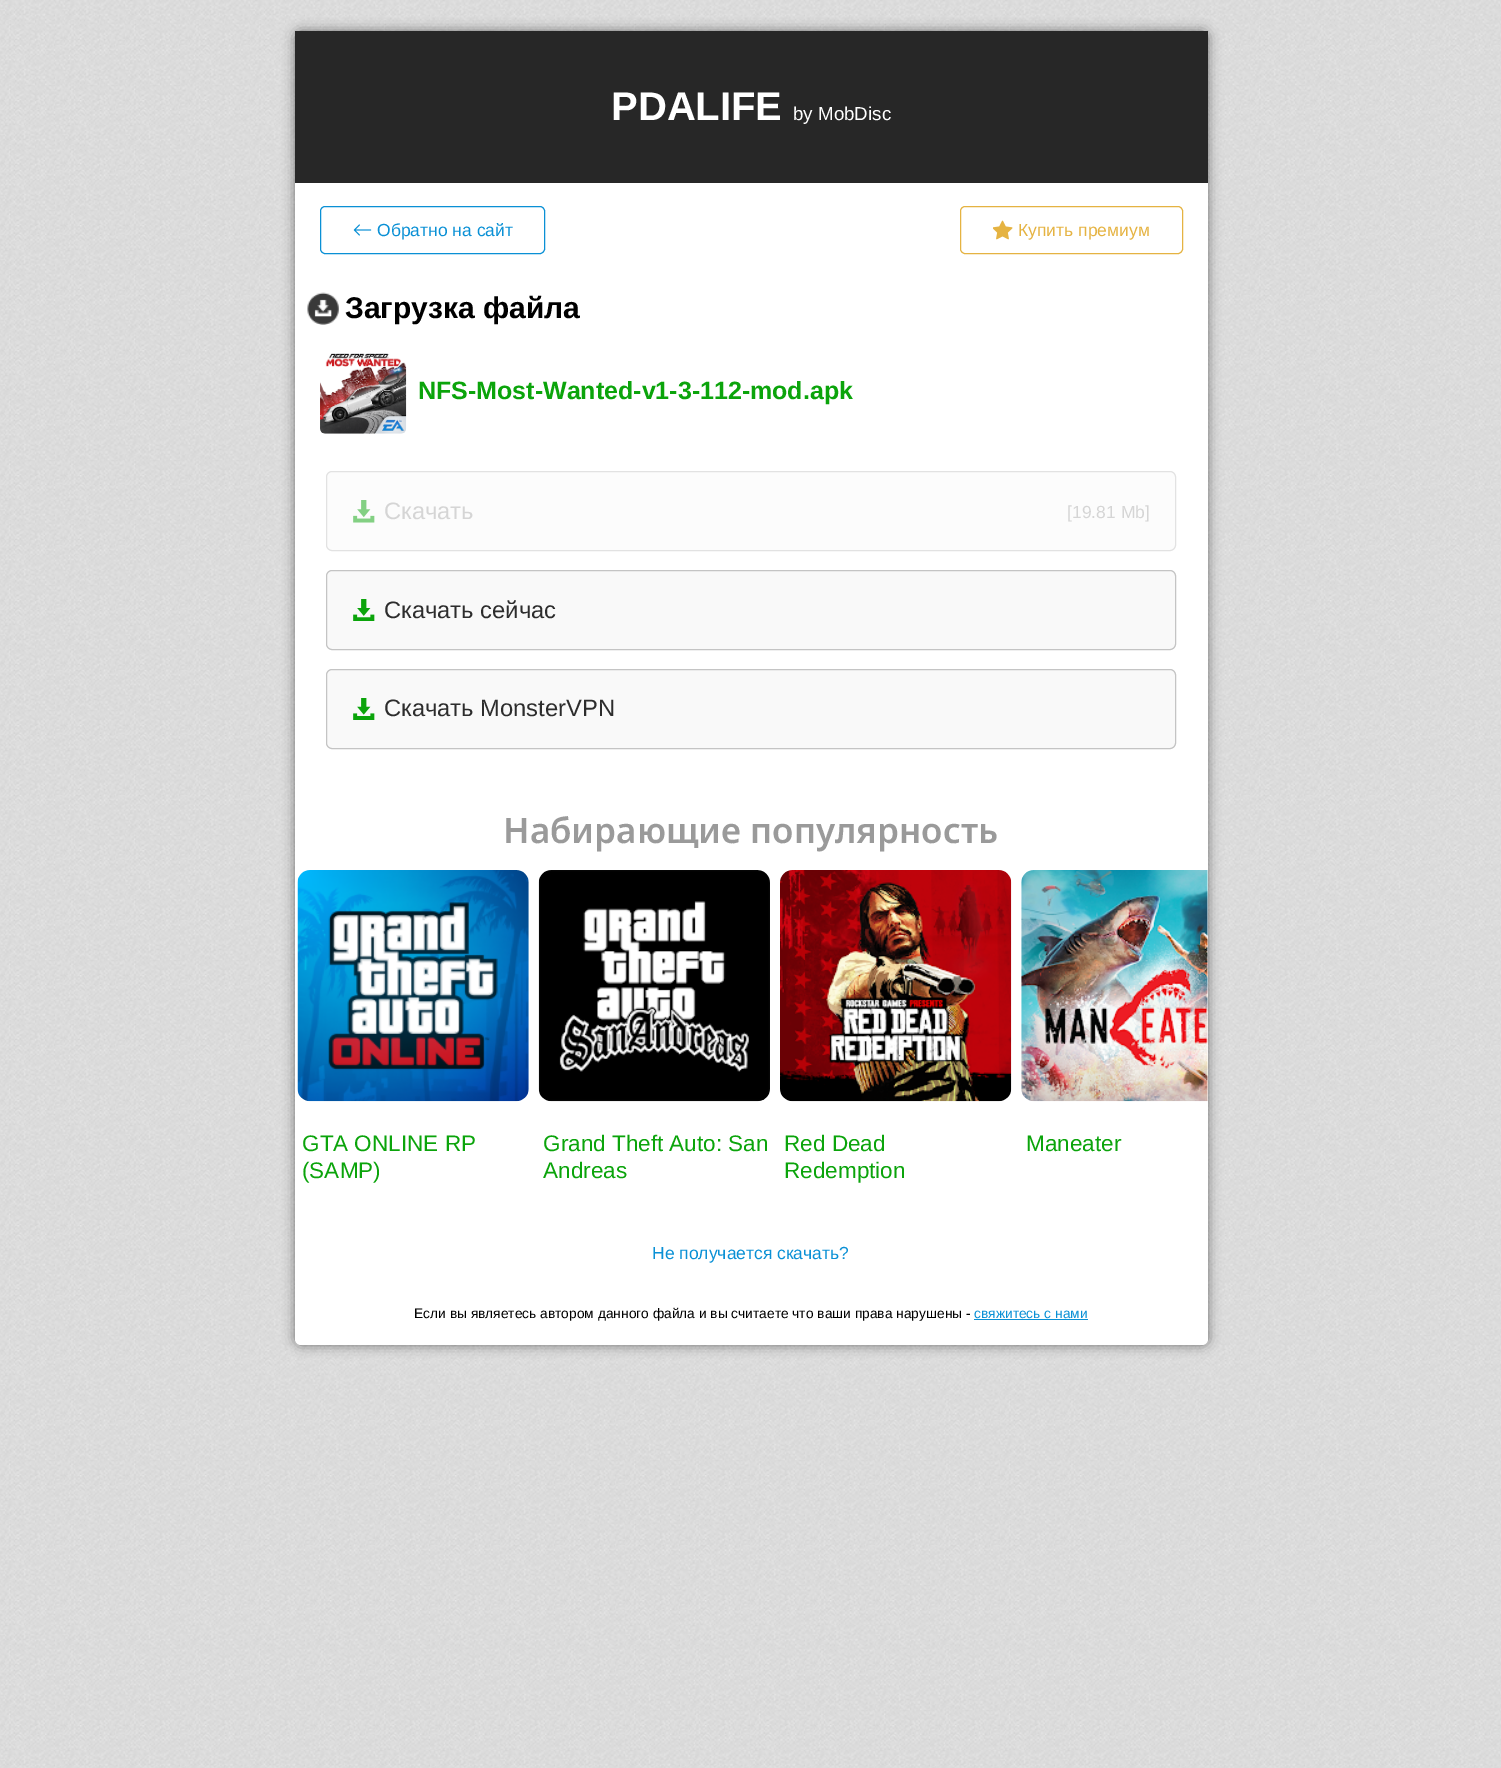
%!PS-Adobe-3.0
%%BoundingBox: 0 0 1501 1768
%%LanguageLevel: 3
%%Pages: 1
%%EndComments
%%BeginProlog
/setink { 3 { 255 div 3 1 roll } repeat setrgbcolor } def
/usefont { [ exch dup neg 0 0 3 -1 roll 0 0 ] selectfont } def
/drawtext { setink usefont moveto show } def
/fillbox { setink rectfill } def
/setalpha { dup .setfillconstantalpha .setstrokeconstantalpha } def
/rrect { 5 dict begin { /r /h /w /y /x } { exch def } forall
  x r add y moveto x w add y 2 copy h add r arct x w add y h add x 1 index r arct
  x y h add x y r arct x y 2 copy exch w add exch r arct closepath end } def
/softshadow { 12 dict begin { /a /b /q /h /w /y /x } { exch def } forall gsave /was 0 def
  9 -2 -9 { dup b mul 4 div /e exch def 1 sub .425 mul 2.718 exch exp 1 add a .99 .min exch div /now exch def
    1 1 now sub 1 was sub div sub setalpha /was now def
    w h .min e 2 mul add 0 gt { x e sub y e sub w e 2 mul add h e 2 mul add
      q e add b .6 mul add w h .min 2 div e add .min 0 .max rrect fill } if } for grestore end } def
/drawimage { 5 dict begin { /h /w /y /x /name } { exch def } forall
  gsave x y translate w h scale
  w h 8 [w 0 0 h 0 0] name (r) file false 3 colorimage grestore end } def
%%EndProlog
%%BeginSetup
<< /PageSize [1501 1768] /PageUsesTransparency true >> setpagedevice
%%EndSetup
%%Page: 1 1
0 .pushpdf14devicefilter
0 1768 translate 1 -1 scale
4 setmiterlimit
0 0 1501 1768 255 255 255 fillbox
(assets/img1.rgb) 0 0 1501 1768 drawimage
0 0 0 setink
295 31 913 1314 6 6 0.5 softshadow
255 255 255 setink
295 31 913 1314 6 rrect fill
295 31 913 152 39 39 39 fillbox
(PDALIFE) 611 120 /LiberationSans-Bold 40 255 255 255 drawtext
(by MobDisc) 793 120 /LiberationSans-Regular 18.75 255 255 255 drawtext
10 144 213 setink
320.5 206.5 224 47 4.5 rrect stroke
(assets/img2.rgb) 353 224 19 12 drawimage
(Обратно на сайт) 377 236 /LiberationSans-Regular 17.5 10 144 213 drawtext
229 179 66 setink
960.5 206.5 222 47 4.5 rrect stroke
(assets/img3.rgb) 993 220 20 20 drawimage
(Купить премиум) 1018 236 /LiberationSans-Regular 17.5 229 179 66 drawtext
(assets/img4.rgb) 307 292 32 33 drawimage
(Загрузка файла) 345 318 /LiberationSans-Bold 30 0 0 0 drawtext
(assets/img5.rgb) 320 353 87 81 drawimage
(NFS-Most-Wanted-v1-3-112-mod.apk) 418 399 /LiberationSans-Bold 25 11 164 11 drawtext
252 252 252 setink
326.5 471.5 849 79 5.5 rrect gsave fill grestore
226 226 226 setink
stroke
(assets/img6.rgb) 353 500 22 23 drawimage
(Скачать) 384 519 /LiberationSans-Regular 23.75 213 213 213 drawtext
([19.81 Mb]) 1067 518 /LiberationSans-Regular 17.5 213 213 213 drawtext
249 249 249 setink
326.5 570.5 849 79 5.5 rrect gsave fill grestore
196 196 196 setink
stroke
(assets/img7.rgb) 353 599 22 22 drawimage
(Скачать сейчас) 384 618 /LiberationSans-Regular 23.75 45 45 45 drawtext
249 249 249 setink
326.5 669.5 849 79 5.5 rrect gsave fill grestore
196 196 196 setink
stroke
(assets/img8.rgb) 353 698 22 22 drawimage
(Скачать MonsterVPN) 384 716 /LiberationSans-Regular 23.75 45 45 45 drawtext
(Набирающие популярность) 503 843 /NotoSans-SemiBold 35 154 154 154 drawtext
(assets/img9.rgb) 297 870 232 232 drawimage
(GTA ONLINE RP) 302 1151 /LiberationSans-Regular 22.5 11 164 11 drawtext
(\(SAMP\)) 302 1178 /LiberationSans-Regular 22.5 11 164 11 drawtext
(assets/img10.rgb) 538 870 232 232 drawimage
(Grand Theft Auto: San) 543 1151 /LiberationSans-Regular 22.5 11 164 11 drawtext
(Andreas) 543 1178 /LiberationSans-Regular 22.5 11 164 11 drawtext
(assets/img11.rgb) 780 870 232 232 drawimage
(Red Dead) 784 1151 /LiberationSans-Regular 22.5 11 164 11 drawtext
(Redemption) 784 1178 /LiberationSans-Regular 22.5 11 164 11 drawtext
(assets/img12.rgb) 1021 870 187 232 drawimage
(Maneater) 1026 1151 /LiberationSans-Regular 22.5 11 164 11 drawtext
(Не получается скачать?) 652 1259 /LiberationSans-Regular 17.5 10 144 213 drawtext
(Если вы являетесь автором данного файла и вы считаете что ваши права нарушены -) 414 1318 /LiberationSans-Regular 13.75 0 0 0 drawtext
(свяжитесь с нами) 974 1318 /LiberationSans-Regular 13.75 10 144 213 drawtext
974 1319 114 1 10 144 213 fillbox
.poppdf14devicefilter showpage
%%EOF
